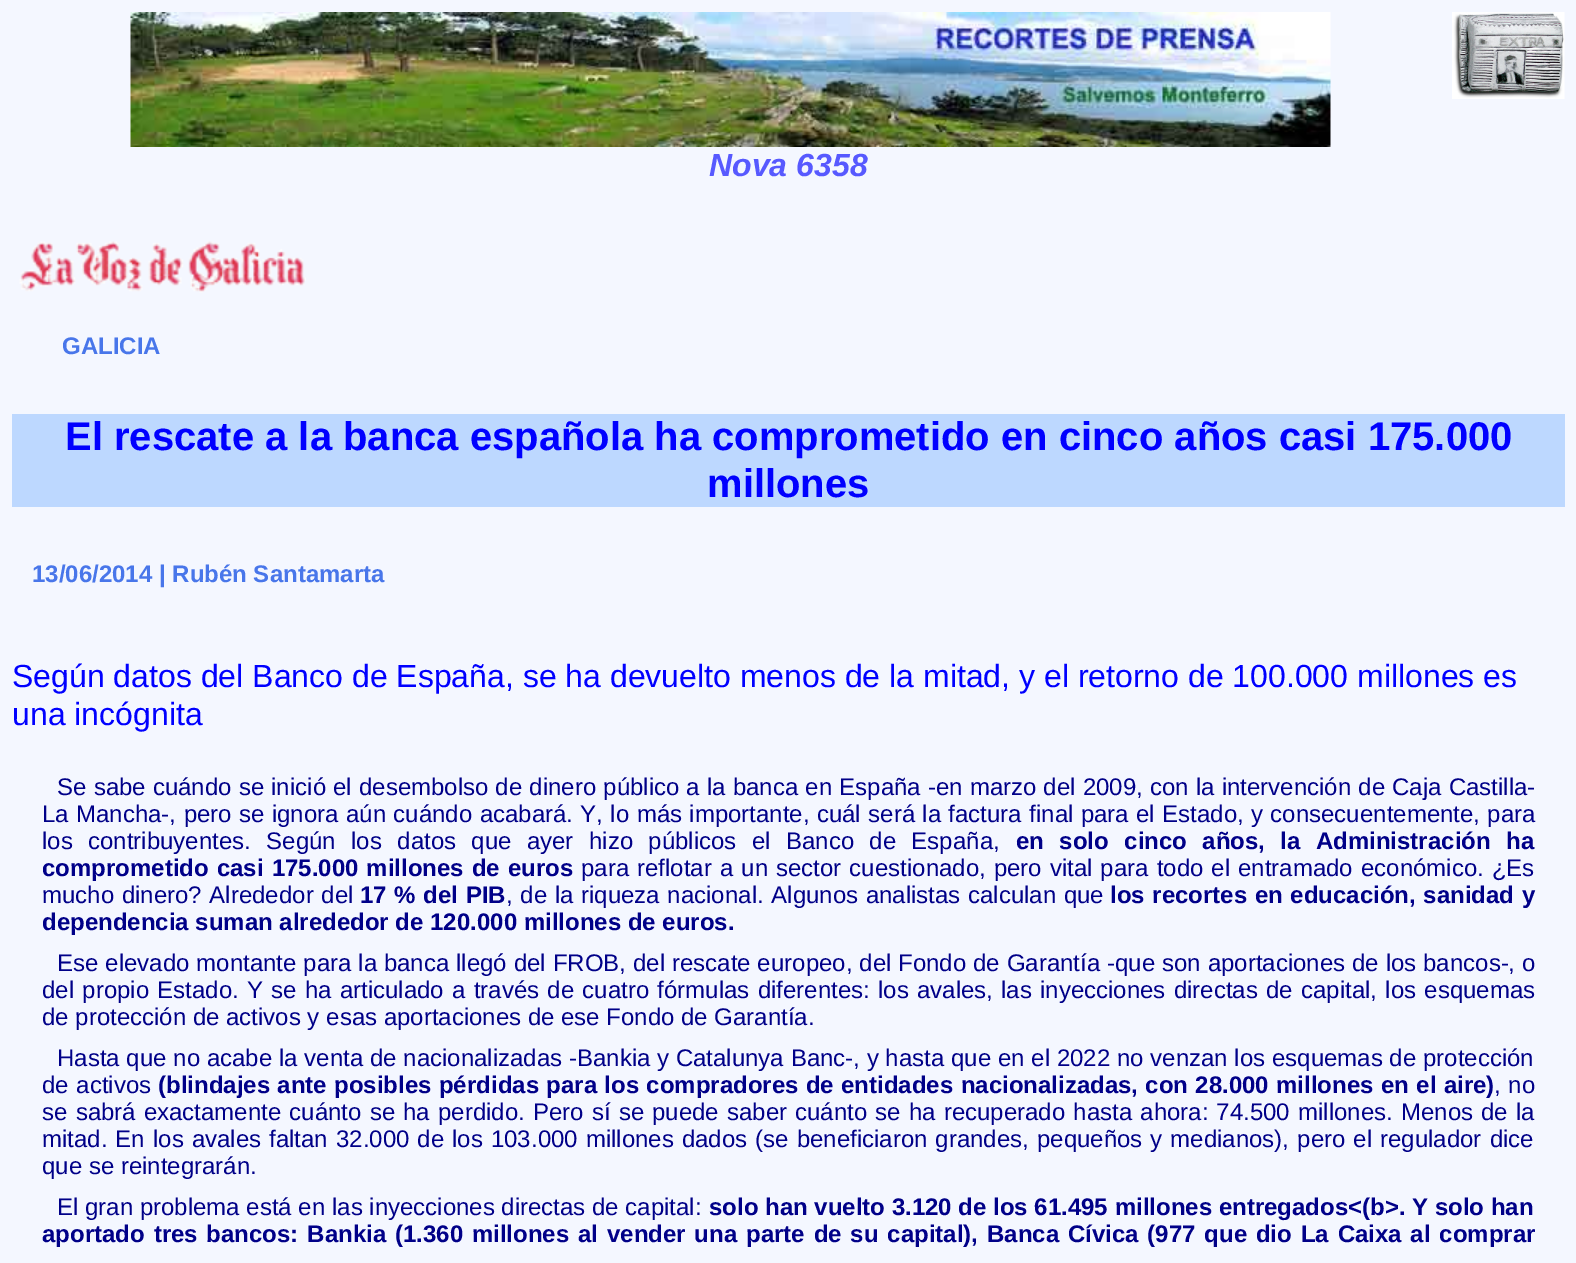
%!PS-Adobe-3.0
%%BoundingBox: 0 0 1576 1263
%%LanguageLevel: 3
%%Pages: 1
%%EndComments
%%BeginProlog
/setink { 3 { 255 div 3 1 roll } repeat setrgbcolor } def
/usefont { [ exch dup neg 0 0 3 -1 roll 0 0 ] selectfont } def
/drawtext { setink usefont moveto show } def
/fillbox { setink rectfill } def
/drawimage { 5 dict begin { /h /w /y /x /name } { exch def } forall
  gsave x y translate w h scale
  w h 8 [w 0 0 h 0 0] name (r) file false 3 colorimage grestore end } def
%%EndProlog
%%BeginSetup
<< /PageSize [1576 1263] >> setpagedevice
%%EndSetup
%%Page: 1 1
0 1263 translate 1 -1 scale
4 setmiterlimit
0 0 1576 1263 244 247 255 fillbox
(assets/img1.rgb) 1452 12 113 87 drawimage
(assets/img2.rgb) 130 12 1201 135 drawimage
(Nova 6358) 709 176 /LiberationSans-BoldItalic 32 87 89 255 drawtext
(assets/img3.rgb) 19 241 287 52 drawimage
(GALICIA) 62 354 /LiberationSans-Bold 24 72 118 234 drawtext
12 414 1553 93 189 216 255 fillbox
(El rescate a la banca española ha comprometido en cinco años casi 175.000) 65 450 /LiberationSans-Bold 40 0 0 255 drawtext
(millones) 707 497 /LiberationSans-Bold 40 0 0 255 drawtext
(13/06/2014 | Rubén Santamarta) 32 582 /LiberationSans-Bold 24 72 118 234 drawtext
(Según datos del Banco de España, se ha devuelto menos de la mitad, y el retorno de 100.000 millones es) 12 687 /LiberationSans-Regular 32 0 0 255 drawtext
(una incógnita) 12 725 /LiberationSans-Regular 32 0 0 255 drawtext
/LiberationSans-Regular 24 usefont
0 0 136 setink
57 795 moveto 0.5 0 32 (Se sabe cuándo se inició el desembolso de dinero público a la banca en España -en marzo del 2009, con la intervención de Caja Castilla-) widthshow
42 822 moveto 0.75 0 32 (La Mancha-, pero se ignora aún cuándo acabará. Y, lo más importante, cuál será la factura final para el Estado, y consecuentemente, para) widthshow
42 849 moveto 8.75 0 32 (los contribuyentes. Según los datos que ayer hizo públicos el Banco de España,) widthshow
/LiberationSans-Bold 24 usefont
1016 849 moveto 8.75 0 32 (en solo cinco años, la Administración ha) widthshow
42 876 moveto 1.4 0 32 (comprometido casi 175.000 millones de euros) widthshow
/LiberationSans-Regular 24 usefont
581 876 moveto 1.4 0 32 (para reflotar a un sector cuestionado, pero vital para todo el entramado económico. ¿Es) widthshow
42 903 moveto 1 0 32 (mucho dinero? Alrededor del) widthshow
/LiberationSans-Bold 24 usefont
360 903 moveto 1 0 32 (17 % del PIB) widthshow
/LiberationSans-Regular 24 usefont
506 903 moveto 1 0 32 (, de la riqueza nacional. Algunos analistas calculan que) widthshow
/LiberationSans-Bold 24 usefont
1110 903 moveto 1 0 32 (los recortes en educación, sanidad y) widthshow
(dependencia suman alrededor de 120.000 millones de euros.) 42 930 /LiberationSans-Bold 24 0 0 136 drawtext
/LiberationSans-Regular 24 usefont
57 971 moveto 0.25 0 32 (Ese elevado montante para la banca llegó del FROB, del rescate europeo, del Fondo de Garantía -que son aportaciones de los bancos-, o) widthshow
42 998 moveto 1.6 0 32 (del propio Estado. Y se ha articulado a través de cuatro fórmulas diferentes: los avales, las inyecciones directas de capital, los esquemas) widthshow
(de protección de activos y esas aportaciones de ese Fondo de Garantía.) 42 1025 /LiberationSans-Regular 24 0 0 136 drawtext
57 1066 moveto 0.1 0 32 (Hasta que no acabe la venta de nacionalizadas -Bankia y Catalunya Banc-, y hasta que en el 2022 no venzan los esquemas de protección) widthshow
42 1093 moveto 1 0 32 (de activos) widthshow
/LiberationSans-Bold 24 usefont
158 1093 moveto 0.7 0 32 (\(blindajes ante posibles pérdidas para los compradores de entidades nacionalizadas, con 28.000 millones en el aire\)) widthshow
/LiberationSans-Regular 24 usefont
1494 1093 moveto 1 0 32 (, no) widthshow
42 1120 moveto 1.5 0 32 (se sabrá exactamente cuánto se ha perdido. Pero sí se puede saber cuánto se ha recuperado hasta ahora: 74.500 millones. Menos de la) widthshow
42 1147 moveto 1.4 0 32 (mitad. En los avales faltan 32.000 de los 103.000 millones dados \(se beneficiaron grandes, pequeños y medianos\), pero el regulador dice) widthshow
(que se reintegrarán.) 42 1174 /LiberationSans-Regular 24 0 0 136 drawtext
(El gran problema está en las inyecciones directas de capital:) 57 1215 /LiberationSans-Regular 24 0 0 136 drawtext
(solo han vuelto 3.120 de los 61.495 millones entregados<\(b>. Y solo han) 709 1215 /LiberationSans-Bold 24 0 0 136 drawtext
42 1242 moveto 2.2 0 32 (aportado tres bancos: Bankia \(1.360 millones al vender una parte de su capital\), Banca Cívica \(977 que dio La Caixa al comprar) widthshow
showpage
%%EOF
